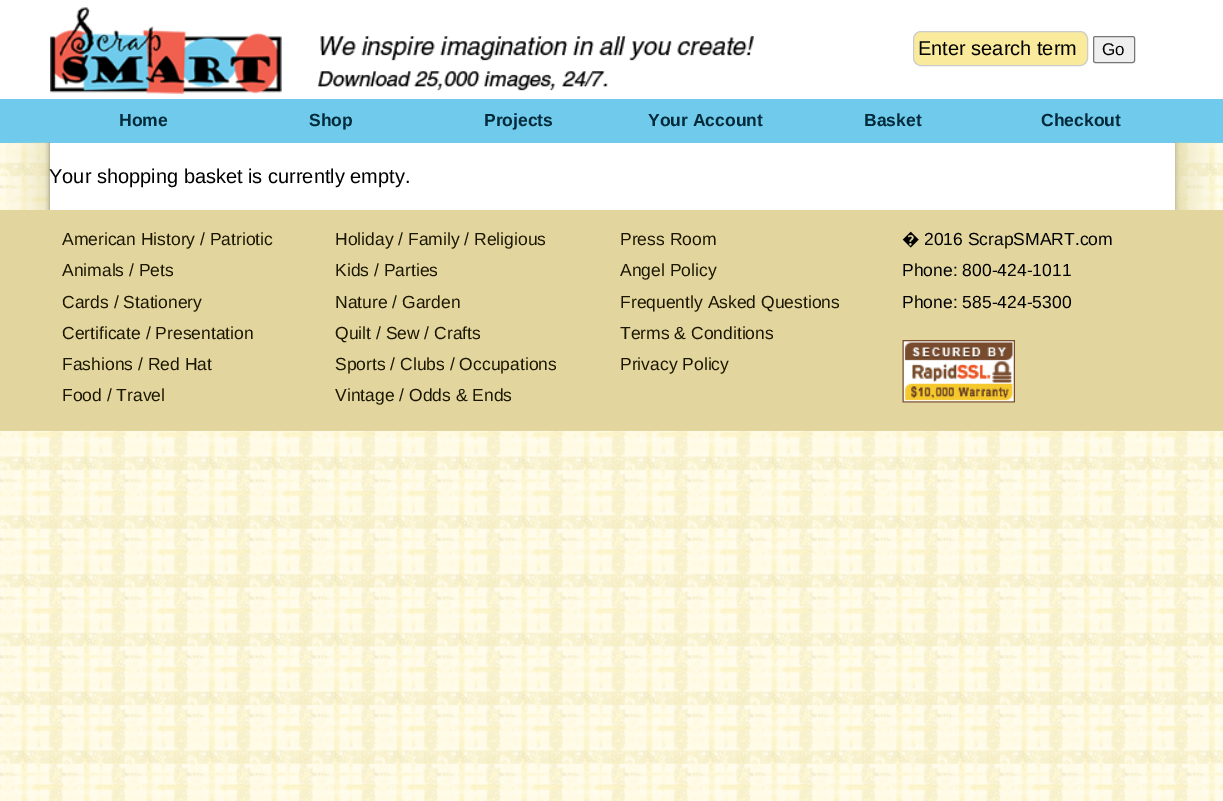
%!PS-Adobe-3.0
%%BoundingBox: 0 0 1223 801
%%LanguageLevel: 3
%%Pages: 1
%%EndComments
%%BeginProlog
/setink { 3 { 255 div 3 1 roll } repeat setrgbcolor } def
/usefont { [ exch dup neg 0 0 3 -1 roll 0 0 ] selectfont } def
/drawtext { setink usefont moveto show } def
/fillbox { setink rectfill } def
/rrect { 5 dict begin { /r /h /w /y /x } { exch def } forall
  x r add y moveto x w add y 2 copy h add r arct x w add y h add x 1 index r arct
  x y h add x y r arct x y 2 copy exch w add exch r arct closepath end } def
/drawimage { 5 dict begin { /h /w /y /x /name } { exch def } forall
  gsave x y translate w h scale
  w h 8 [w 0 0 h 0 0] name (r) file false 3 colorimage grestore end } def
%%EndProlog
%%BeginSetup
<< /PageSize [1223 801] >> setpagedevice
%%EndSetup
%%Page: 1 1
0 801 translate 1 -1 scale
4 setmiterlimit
0 0 1223 801 255 255 255 fillbox
(assets/img1.rgb) 0 143 1223 658 drawimage
(assets/img2.rgb) 50 7 704 87 drawimage
250 234 156 setink
913.5 31.5 174 34 7.5 rrect gsave fill grestore
204 204 204 setink
stroke
(Enter search term) 918 55 /LiberationSans-Regular 20 0 0 0 drawtext
239 239 239 setink
1093.5 36.5 41 26 2 rrect gsave fill grestore
118 118 118 setink
stroke
(Go) 1102 55 /LiberationSans-Regular 17 0 0 0 drawtext
0 99 1223 44 111 202 236 fillbox
(Home) 119 126 /LiberationSans-Bold 17.5 0 42 58 drawtext
(Shop) 309 126 /LiberationSans-Bold 17.5 0 42 58 drawtext
(Projects) 484 126 /LiberationSans-Bold 17.5 0 42 58 drawtext
(Your Account) 648 126 /LiberationSans-Bold 17.5 0 42 58 drawtext
(Basket) 864 126 /LiberationSans-Bold 17.5 0 42 58 drawtext
(Checkout) 1041 126 /LiberationSans-Bold 17.5 0 42 58 drawtext
(assets/img3.rgb) 6 142 1211 68 drawimage
50 143 1125 67 255 255 255 fillbox
(Your shopping basket is currently empty.) 49 183 /LiberationSans-Regular 20 0 0 0 drawtext
0 210 1223 221 226 214 158 fillbox
(American History / Patriotic) 62 245 /LiberationSans-Regular 17.5 27 22 0 drawtext
(Animals / Pets) 62 276 /LiberationSans-Regular 17.5 27 22 0 drawtext
(Cards / Stationery) 62 308 /LiberationSans-Regular 17.5 27 22 0 drawtext
(Certificate / Presentation) 62 339 /LiberationSans-Regular 17.5 27 22 0 drawtext
(Fashions / Red Hat) 62 370 /LiberationSans-Regular 17.5 27 22 0 drawtext
(Food / Travel) 62 401 /LiberationSans-Regular 17.5 27 22 0 drawtext
(Holiday / Family / Religious) 335 245 /LiberationSans-Regular 17.5 27 22 0 drawtext
(Kids / Parties) 335 276 /LiberationSans-Regular 17.5 27 22 0 drawtext
(Nature / Garden) 335 308 /LiberationSans-Regular 17.5 27 22 0 drawtext
(Quilt / Sew / Crafts) 335 339 /LiberationSans-Regular 17.5 27 22 0 drawtext
(Sports / Clubs / Occupations) 335 370 /LiberationSans-Regular 17.5 27 22 0 drawtext
(Vintage / Odds & Ends) 335 401 /LiberationSans-Regular 17.5 27 22 0 drawtext
(Press Room) 620 245 /LiberationSans-Regular 17.5 27 22 0 drawtext
(Angel Policy) 620 276 /LiberationSans-Regular 17.5 27 22 0 drawtext
(Frequently Asked Questions) 620 308 /LiberationSans-Regular 17.5 27 22 0 drawtext
(Terms & Conditions) 620 339 /LiberationSans-Regular 17.5 27 22 0 drawtext
(Privacy Policy) 620 370 /LiberationSans-Regular 17.5 27 22 0 drawtext
(�) 902 245 /NotoSans-Regular 17.5 0 0 0 drawtext
(2016 ScrapSMART.com) 924 245 /LiberationSans-Regular 17.5 0 0 0 drawtext
(Phone: 800-424-1011) 902 276 /LiberationSans-Regular 17.5 0 0 0 drawtext
(Phone: 585-424-5300) 902 308 /LiberationSans-Regular 17.5 0 0 0 drawtext
(assets/img4.rgb) 902 340 113 63 drawimage
showpage
%%EOF
